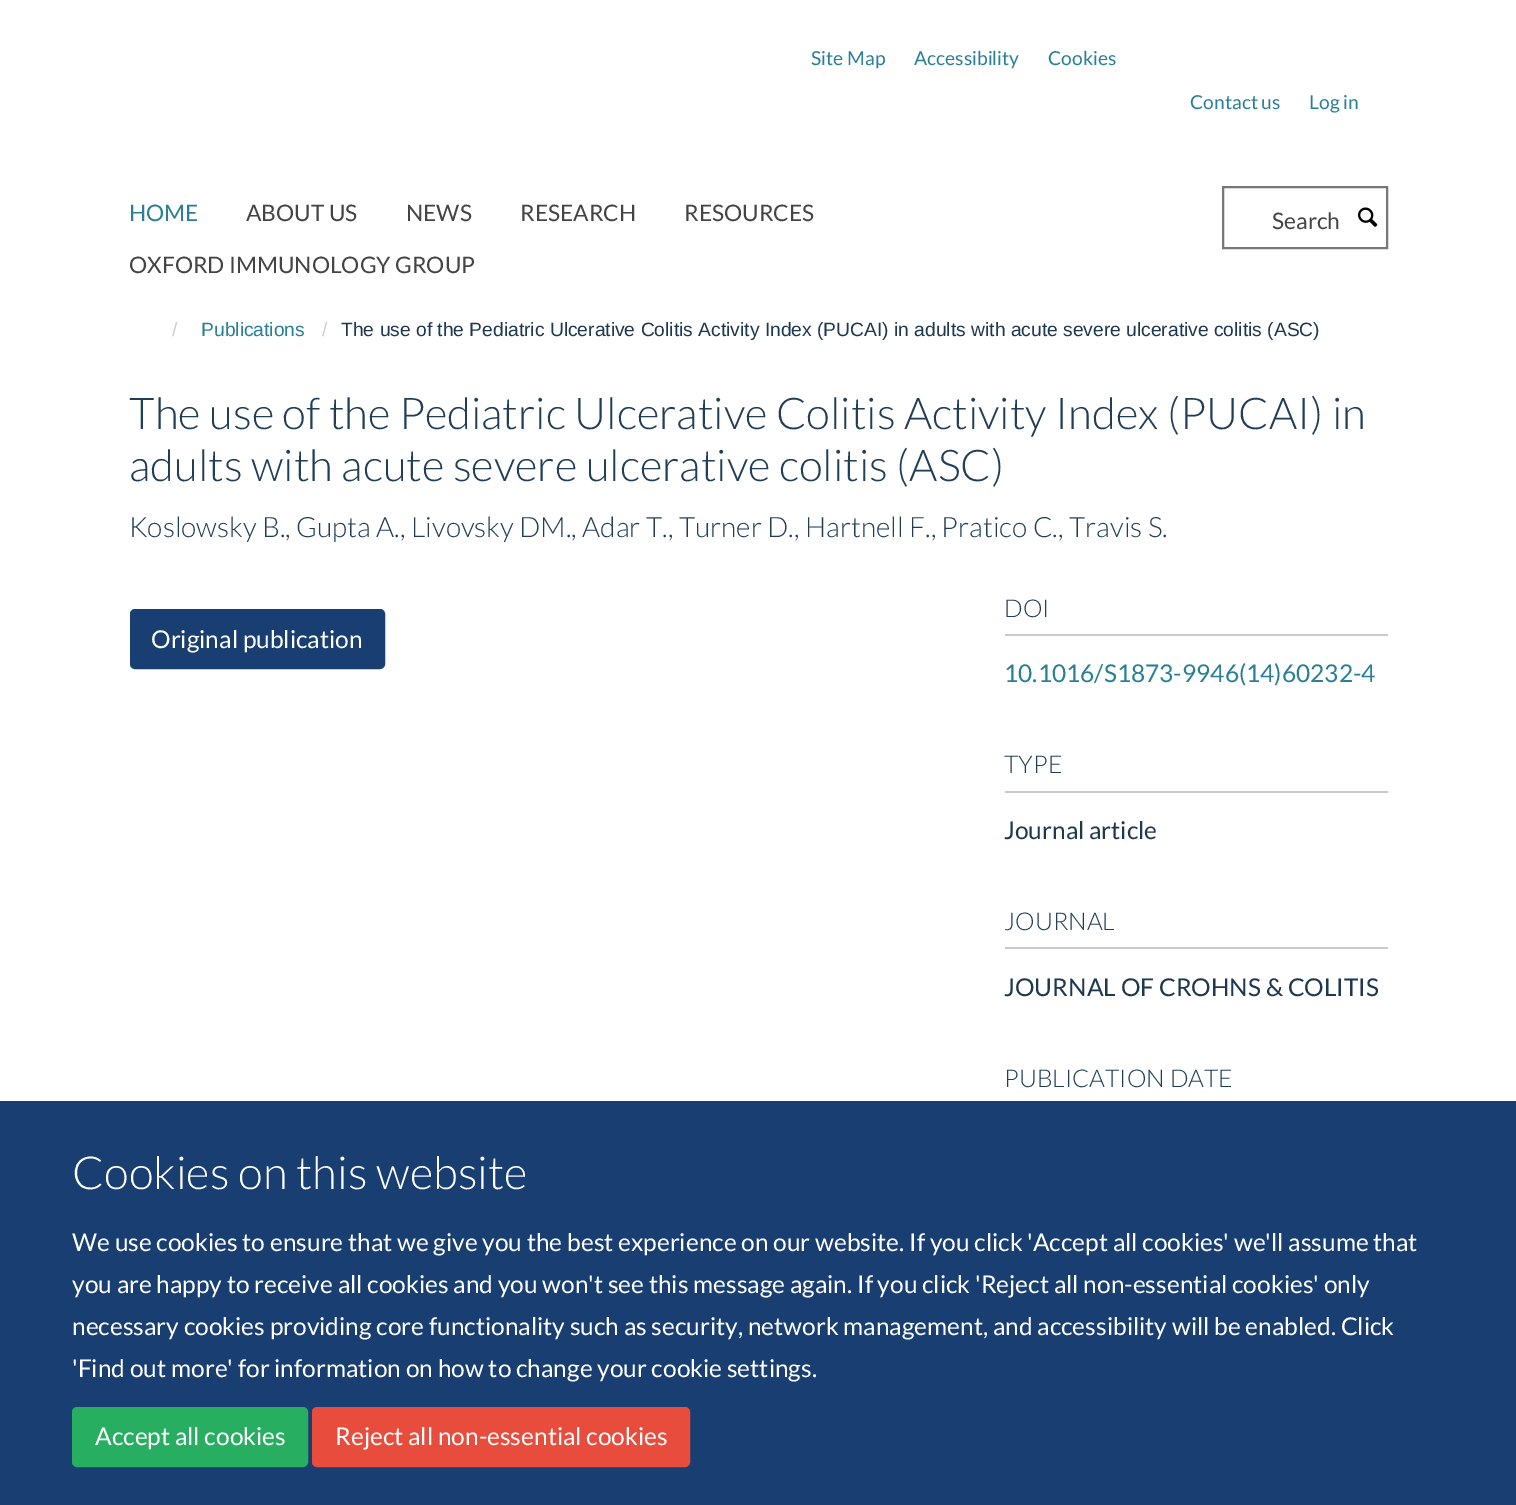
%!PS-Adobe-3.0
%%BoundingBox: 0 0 1516 1505
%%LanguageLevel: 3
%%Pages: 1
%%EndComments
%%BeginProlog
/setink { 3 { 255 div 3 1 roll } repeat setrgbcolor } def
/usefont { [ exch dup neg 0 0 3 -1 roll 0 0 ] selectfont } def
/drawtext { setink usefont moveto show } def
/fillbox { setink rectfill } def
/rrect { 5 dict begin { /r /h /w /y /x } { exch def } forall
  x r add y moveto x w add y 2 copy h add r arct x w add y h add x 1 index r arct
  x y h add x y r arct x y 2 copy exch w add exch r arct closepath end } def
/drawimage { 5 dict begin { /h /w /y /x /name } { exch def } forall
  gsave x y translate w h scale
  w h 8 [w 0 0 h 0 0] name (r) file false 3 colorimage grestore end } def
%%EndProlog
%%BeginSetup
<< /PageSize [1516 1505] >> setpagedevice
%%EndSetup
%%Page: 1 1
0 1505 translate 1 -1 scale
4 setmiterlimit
0 0 1516 1505 255 255 255 fillbox
(Site Map) 811 65 /Lato-Regular 19.25 41 128 150 drawtext
(Accessibility) 914 65 /Lato-Regular 19.25 41 128 150 drawtext
(Cookies) 1048 65 /Lato-Regular 19.25 41 128 150 drawtext
(Contact us) 1190 109 /Lato-Regular 19.25 41 128 150 drawtext
(Log in) 1309 109 /Lato-Regular 19.25 41 128 150 drawtext
(HOME) 129 221 /Lato-Regular 22.75 41 128 150 drawtext
(ABOUT US) 246 221 /Lato-Regular 22.75 68 68 68 drawtext
(NEWS) 406 221 /Lato-Regular 22.75 68 68 68 drawtext
(RESEARCH) 520 221 /Lato-Regular 22.75 68 68 68 drawtext
(RESOURCES) 684 221 /Lato-Regular 22.75 68 68 68 drawtext
(OXFORD IMMUNOLOGY GROUP) 129 273 /Lato-Regular 22.75 68 68 68 drawtext
119 119 119 setink
2 setlinewidth
1223 187 164 61 rectstroke
(Search) 1272 229 /Lato-Regular 22.75 68 68 68 drawtext
(assets/img1.rgb) 1358 207 20 20 drawimage
(/) 172 336 /LiberationSans-Regular 19.25 204 204 204 drawtext
(Publications) 201 336 /LiberationSans-Regular 19.25 41 128 150 drawtext
(/) 322 336 /LiberationSans-Regular 19.25 204 204 204 drawtext
(The use of the Pediatric Ulcerative Colitis Activity Index \(PUCAI\) in adults with acute severe ulcerative colitis \(ASC\)) 341 336 /LiberationSans-Regular 19.25 29 56 80 drawtext
(The use of the Pediatric Ulcerative Colitis Activity Index \(PUCAI\) in) 129 429 /Lato-Light 43.75 32 62 88 drawtext
(adults with acute severe ulcerative colitis \(ASC\)) 129 481 /Lato-Light 43.75 32 62 88 drawtext
(Koslowsky B., Gupta A., Livovsky DM., Adar T., Turner D., Hartnell F., Pratico C., Travis S.) 129 537 /Lato-Light 28 32 62 88 drawtext
25 62 114 setink
131 610 253 58 4 rrect gsave fill grestore
stroke
(Original publication) 151 648 /Lato-Regular 24.5 255 255 255 drawtext
1005 634 383 2 198 202 207 fillbox
(DOI) 1004 617 /Lato-Light 24.5 32 62 88 drawtext
(10.1016/S1873-9946\(14\)60232-4) 1004 682 /Lato-Regular 24.5 41 128 150 drawtext
1005 791 383 2 198 202 207 fillbox
(TYPE) 1004 773 /Lato-Light 24.5 32 62 88 drawtext
(Journal article) 1004 839 /Lato-Regular 24.5 29 56 80 drawtext
1005 947 383 2 198 202 207 fillbox
(JOURNAL) 1004 930 /Lato-Light 24.5 32 62 88 drawtext
(JOURNAL OF CROHNS & COLITIS) 1004 996 /Lato-Regular 24.5 29 56 80 drawtext
(PUBLICATION DATE) 1004 1087 /Lato-Light 24.5 32 62 88 drawtext
0 1101 1516 404 25 62 114 fillbox
(Cookies on this website) 72 1189 /Lato-Light 45.5 255 255 255 drawtext
(We use cookies to ensure that we give you the best experience on our website. If you click 'Accept all cookies' we'll assume that) 72 1251 /Lato-Regular 24.5 255 255 255 drawtext
(you are happy to receive all cookies and you won't see this message again. If you click 'Reject all non-essential cookies' only) 72 1293 /Lato-Regular 24.5 255 255 255 drawtext
(necessary cookies providing core functionality such as security, network management, and accessibility will be enabled. Click) 72 1335 /Lato-Regular 24.5 255 255 255 drawtext
('Find out more' for information on how to change your cookie settings.) 72 1377 /Lato-Regular 24.5 255 255 255 drawtext
39 174 96 setink
73 1408 234 58 4 rrect gsave fill grestore
stroke
(Accept all cookies) 95 1445 /Lato-Regular 24.5 255 255 255 drawtext
231 76 60 setink
313 1408 376 58 4 rrect gsave fill grestore
stroke
(Reject all non-essential cookies) 335 1445 /Lato-Regular 24.5 255 255 255 drawtext
showpage
%%EOF
